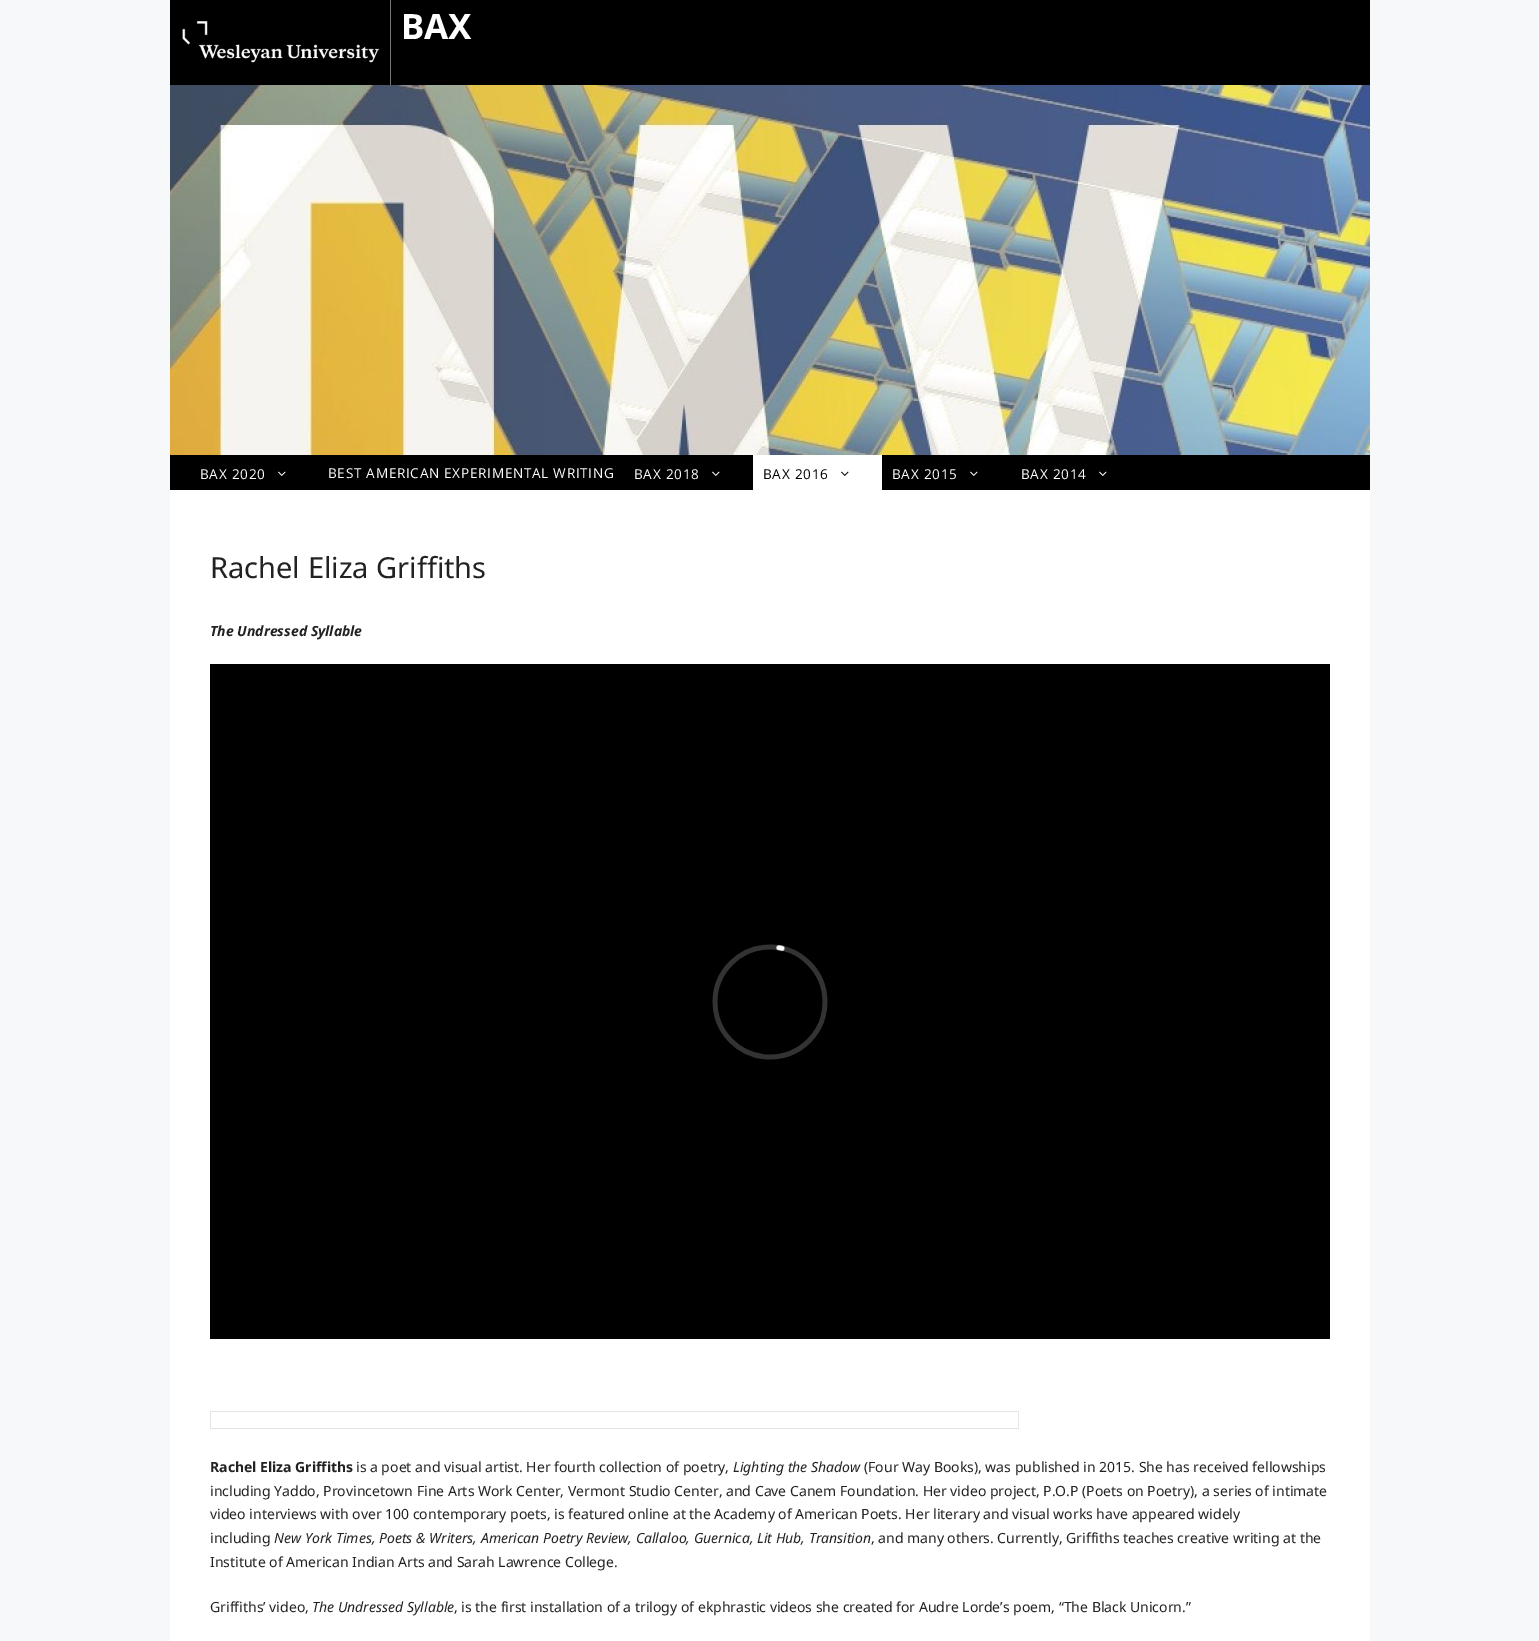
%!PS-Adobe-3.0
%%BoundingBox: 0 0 1539 1641
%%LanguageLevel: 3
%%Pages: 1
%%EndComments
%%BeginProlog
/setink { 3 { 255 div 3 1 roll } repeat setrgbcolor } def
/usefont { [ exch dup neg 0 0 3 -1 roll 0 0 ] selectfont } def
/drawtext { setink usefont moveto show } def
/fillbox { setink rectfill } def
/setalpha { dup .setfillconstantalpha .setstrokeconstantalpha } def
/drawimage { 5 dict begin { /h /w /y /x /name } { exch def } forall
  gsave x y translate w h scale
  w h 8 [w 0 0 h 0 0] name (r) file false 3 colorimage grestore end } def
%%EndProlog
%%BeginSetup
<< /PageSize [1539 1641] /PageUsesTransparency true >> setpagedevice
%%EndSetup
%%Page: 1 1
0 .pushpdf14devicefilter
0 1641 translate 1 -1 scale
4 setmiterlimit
0 0 1539 1641 247 248 249 fillbox
170 0 1200 85 0 0 0 fillbox
(assets/img1.rgb) 182 20 198 43 drawimage
390 0 1 85 119 119 119 fillbox
(BAX) 401 39 /NotoSans-Bold 35 255 255 255 drawtext
(assets/img2.rgb) 170 85 1200 370 drawimage
170 455 1200 35 0 0 0 fillbox
/OpenSans-Regular 13.6 usefont
255 255 255 setink
200 479 moveto 0.7 0 (BAX 2020) ashow
(assets/img3.rgb) 278 471 8 5 drawimage
328 478 moveto 0.7 0 (BEST AMERICAN EXPERIMENTAL WRITING) ashow
634 479 moveto 0.7 0 (BAX 2018) ashow
(assets/img3.rgb) 712 471 8 5 drawimage
753 455 129 35 255 255 255 fillbox
0 0 0 setink
763 479 moveto 0.7 0 (BAX 2016) ashow
(assets/img4.rgb) 841 471 8 5 drawimage
255 255 255 setink
892 479 moveto 0.7 0 (BAX 2015) ashow
(assets/img3.rgb) 970 471 8 5 drawimage
1021 479 moveto 0.7 0 (BAX 2014) ashow
(assets/img3.rgb) 1099 471 8 5 drawimage
170 490 1200 1151 255 255 255 fillbox
(Rachel Eliza Griffiths) 210 578 /NotoSans-Regular 29 34 34 34 drawtext
(The Undressed Syllable) 210 636 /NotoSans-BoldItalic 14 34 34 34 drawtext
(assets/img5.rgb) 210 664 1120 675 drawimage
230 230 230 setink
210 1411 moveto 1019 1411 lineto 1019 1412 lineto 211 1412 lineto closepath fill
0.1 setalpha
0 0 0 setink
210 1429 moveto 210 1411 lineto 211 1412 lineto 211 1429 lineto closepath fill
1 setalpha
230 230 230 setink
1019 1412 moveto 1019 1429 lineto 1018 1428 lineto 1018 1412 lineto closepath fill
0.1 setalpha
0 0 0 setink
1019 1429 moveto 211 1429 lineto 211 1428 lineto 1018 1428 lineto closepath fill
1 setalpha
(Rachel Eliza Griffiths) 210 1472 /NotoSans-Bold 14 34 34 34 drawtext
(is a poet and visual artist. Her fourth collection of poetry,) 356 1472 /NotoSans-Regular 14 34 34 34 drawtext
(Lighting the Shadow) 733 1472 /NotoSans-Italic 14 34 34 34 drawtext
(\(Four Way Books\), was published in 2015. She has received fellowships) 864 1472 /NotoSans-Regular 14 34 34 34 drawtext
(including Yaddo, Provincetown Fine Arts Work Center, Vermont Studio Center, and Cave Canem Foundation. Her video project, P.O.P \(Poets on Poetry\), a series of intimate) 210 1496 /NotoSans-Regular 14 34 34 34 drawtext
(video interviews with over 100 contemporary poets, is featured online at the Academy of American Poets. Her literary and visual works have appeared widely) 210 1519 /NotoSans-Regular 14 34 34 34 drawtext
(including) 210 1543 /NotoSans-Regular 14 34 34 34 drawtext
(New York Times, Poets & Writers, American Poetry Review, Callaloo, Guernica, Lit Hub, Transition) 274 1543 /NotoSans-Italic 14 34 34 34 drawtext
(, and many others. Currently, Griffiths teaches creative writing at the) 871 1543 /NotoSans-Regular 14 34 34 34 drawtext
(Institute of American Indian Arts and Sarah Lawrence College.) 210 1567 /NotoSans-Regular 14 34 34 34 drawtext
(Griffiths’ video,) 210 1612 /NotoSans-Regular 14 34 34 34 drawtext
(The Undressed Syllable) 312 1612 /NotoSans-Italic 14 34 34 34 drawtext
(, is the first installation of a trilogy of ekphrastic videos she created for Audre Lorde’s poem, “The Black Unicorn.”) 454 1612 /NotoSans-Regular 14 34 34 34 drawtext
.poppdf14devicefilter showpage
%%EOF
